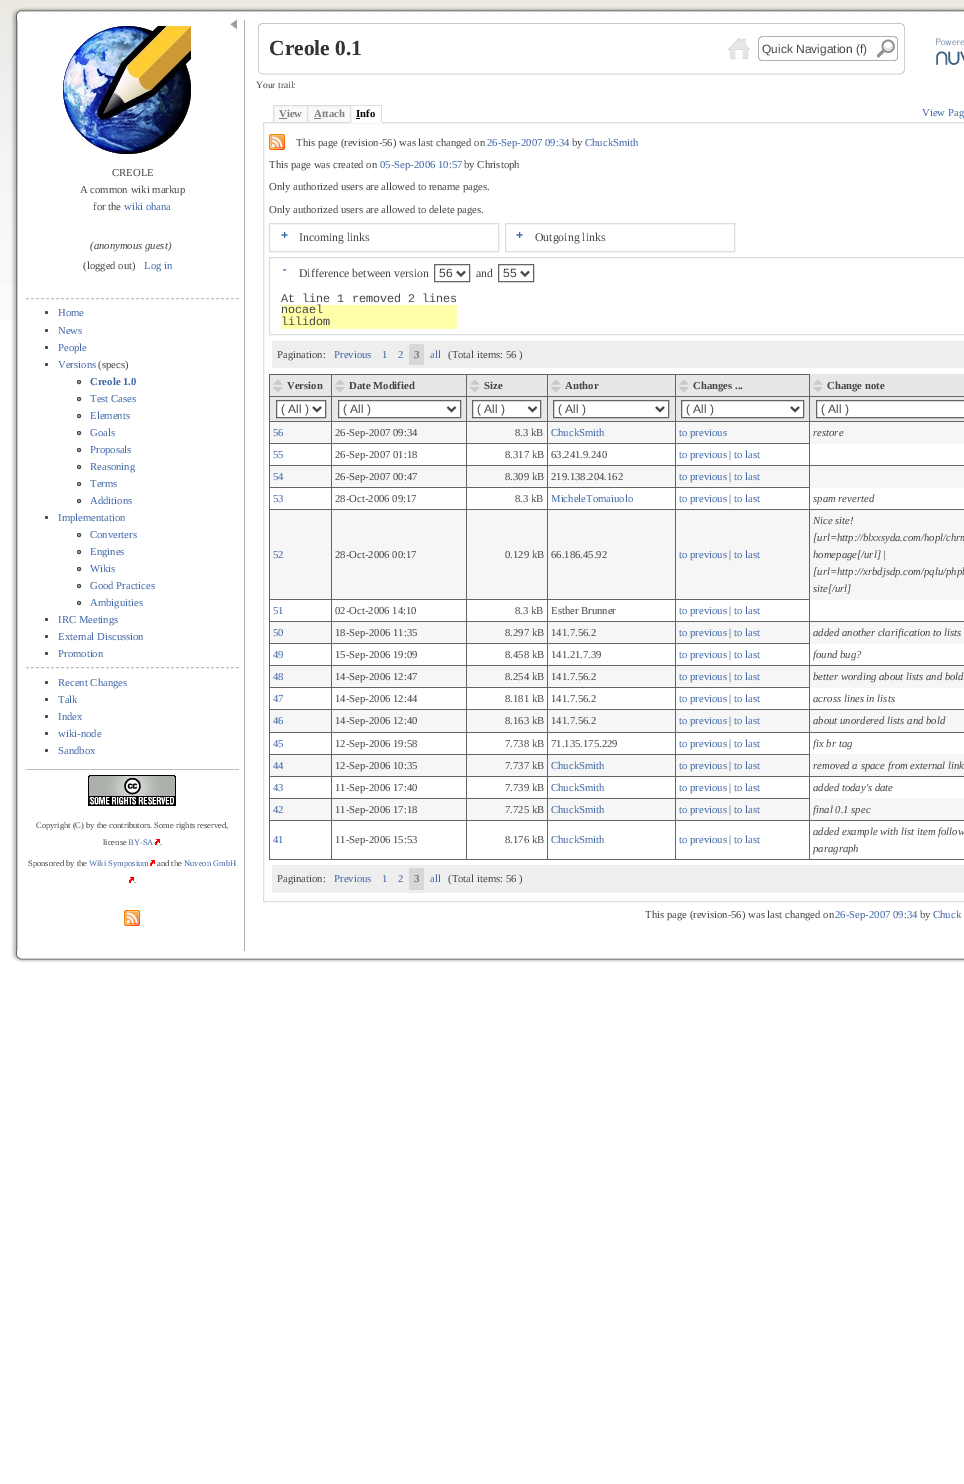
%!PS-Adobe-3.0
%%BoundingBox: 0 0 964 1484
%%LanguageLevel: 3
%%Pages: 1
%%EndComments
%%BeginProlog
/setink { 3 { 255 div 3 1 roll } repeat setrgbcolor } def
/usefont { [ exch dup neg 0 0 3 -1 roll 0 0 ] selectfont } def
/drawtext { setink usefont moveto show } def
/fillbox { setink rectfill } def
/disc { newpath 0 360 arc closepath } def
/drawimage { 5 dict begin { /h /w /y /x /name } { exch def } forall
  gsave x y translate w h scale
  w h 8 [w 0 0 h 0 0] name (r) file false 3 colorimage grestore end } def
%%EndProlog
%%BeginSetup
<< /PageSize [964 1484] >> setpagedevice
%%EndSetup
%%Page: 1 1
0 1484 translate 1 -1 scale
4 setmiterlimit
0 0 964 1484 255 255 255 fillbox
(assets/img1.rgb) 0 0 964 320 drawimage
(assets/img2.rgb) 11 8 9 12 drawimage
(assets/img3.rgb) 20 7 944 13 drawimage
(assets/img4.rgb) 11 20 9 930 drawimage
20 20 224 300 255 255 255 fillbox
244 20 1 931 177 177 178 fillbox
(assets/img5.rgb) 230 20 7 9 drawimage
(assets/img6.rgb) 63 26 128 128 drawimage
(CREOLE) 112 176 /LiberationSerif-Regular 10.7 68 69 71 drawtext
(A common wiki markup) 80 193 /LiberationSerif-Regular 10.7 68 69 71 drawtext
(for the) 93 210 /LiberationSerif-Regular 10.7 68 69 71 drawtext
(wiki ohana) 124 210 /LiberationSerif-Regular 10.7 63 103 166 drawtext
(\(anonymous guest\)) 90 249 /LiberationSerif-Italic 10.7 68 69 71 drawtext
(\(logged out\)) 83 269 /LiberationSerif-Regular 10.7 68 69 71 drawtext
(Log in) 144 269 /LiberationSerif-Regular 10.7 63 103 166 drawtext
191 191 191 setink
[3 2] 0 setdash
26 298.5 moveto 239 298.5 lineto stroke
68 69 71 setink
46.5 312.5 1.5 disc fill
(Home) 58 316 /LiberationSerif-Regular 10.7 63 103 166 drawtext
68 69 71 setink
46.5 330.5 1.5 disc fill
(News) 58 334 /LiberationSerif-Regular 10.7 63 103 166 drawtext
68 69 71 setink
46.5 347.5 1.5 disc fill
(People) 58 351 /LiberationSerif-Regular 10.7 63 103 166 drawtext
68 69 71 setink
46.5 364.5 1.5 disc fill
(Versions) 58 368 /LiberationSerif-Regular 10.7 63 103 166 drawtext
(\(specs\)) 98 368 /LiberationSerif-Regular 10.7 68 69 71 drawtext
[] 0 setdash
79 382 1.5 disc stroke
(Creole 1.0) 90 385 /LiberationSerif-Bold 10.7 63 103 166 drawtext
68 69 71 setink
79 399 1.5 disc stroke
(Test Cases) 90 402 /LiberationSerif-Regular 10.7 63 103 166 drawtext
68 69 71 setink
79 416 1.5 disc stroke
(Elements) 90 419 /LiberationSerif-Regular 10.7 63 103 166 drawtext
68 69 71 setink
79 433 1.5 disc stroke
(Goals) 90 436 /LiberationSerif-Regular 10.7 63 103 166 drawtext
68 69 71 setink
79 450 1.5 disc stroke
(Proposals) 90 453 /LiberationSerif-Regular 10.7 63 103 166 drawtext
68 69 71 setink
79 467 1.5 disc stroke
(Reasoning) 90 470 /LiberationSerif-Regular 10.7 63 103 166 drawtext
68 69 71 setink
79 484 1.5 disc stroke
(Terms) 90 487 /LiberationSerif-Regular 10.7 63 103 166 drawtext
68 69 71 setink
79 501 1.5 disc stroke
(Additions) 90 504 /LiberationSerif-Regular 10.7 63 103 166 drawtext
68 69 71 setink
46.5 517.5 1.5 disc fill
(Implementation) 58 521 /LiberationSerif-Regular 10.7 63 103 166 drawtext
68 69 71 setink
79 535 1.5 disc stroke
(Converters) 90 538 /LiberationSerif-Regular 10.7 63 103 166 drawtext
68 69 71 setink
79 552 1.5 disc stroke
(Engines) 90 555 /LiberationSerif-Regular 10.7 63 103 166 drawtext
68 69 71 setink
79 569 1.5 disc stroke
(Wikis) 90 572 /LiberationSerif-Regular 10.7 63 103 166 drawtext
68 69 71 setink
79 586 1.5 disc stroke
(Good Practices) 90 589 /LiberationSerif-Regular 10.7 63 103 166 drawtext
68 69 71 setink
79 603 1.5 disc stroke
(Ambiguities) 90 606 /LiberationSerif-Regular 10.7 63 103 166 drawtext
68 69 71 setink
46.5 619.5 1.5 disc fill
(IRC Meetings) 58 623 /LiberationSerif-Regular 10.7 63 103 166 drawtext
68 69 71 setink
46.5 636.5 1.5 disc fill
(External Discussion) 58 640 /LiberationSerif-Regular 10.7 63 103 166 drawtext
68 69 71 setink
46.5 653.5 1.5 disc fill
(Promotion) 58 657 /LiberationSerif-Regular 10.7 63 103 166 drawtext
191 191 191 setink
[3 2] 0 setdash
26 667.5 moveto 239 667.5 lineto stroke
68 69 71 setink
46.5 682.5 1.5 disc fill
(Recent Changes) 58 686 /LiberationSerif-Regular 10.7 63 103 166 drawtext
68 69 71 setink
46.5 699.5 1.5 disc fill
(Talk) 58 703 /LiberationSerif-Regular 10.7 63 103 166 drawtext
68 69 71 setink
46.5 716.5 1.5 disc fill
(Index) 58 720 /LiberationSerif-Regular 10.7 63 103 166 drawtext
68 69 71 setink
46.5 733.5 1.5 disc fill
(wiki-node) 58 737 /LiberationSerif-Regular 10.7 63 103 166 drawtext
68 69 71 setink
46.5 750.5 1.5 disc fill
(Sandbox) 58 754 /LiberationSerif-Regular 10.7 63 103 166 drawtext
26 769 213 1 191 191 191 fillbox
(assets/img7.rgb) 88 775 88 31 drawimage
(Copyright \(C\) by the contributors. Some rights reserved,) 36 828 /LiberationSerif-Regular 8.5 68 69 71 drawtext
(license) 103 845 /LiberationSerif-Regular 8.5 68 69 71 drawtext
(BY-SA) 128 845 /LiberationSerif-Regular 8.5 63 103 166 drawtext
(assets/img8.rgb) 155 839 5 6 drawimage
(.) 160 845 /LiberationSerif-Regular 8.5 68 69 71 drawtext
(Sponsored by the) 28 866 /LiberationSerif-Regular 8.5 68 69 71 drawtext
(Wiki Symposium) 89 866 /LiberationSerif-Regular 8.5 63 103 166 drawtext
(assets/img8.rgb) 150 860 5 6 drawimage
(and the) 157 866 /LiberationSerif-Regular 8.5 68 69 71 drawtext
(Nuveon GmbH) 184 866 /LiberationSerif-Regular 8.5 63 103 166 drawtext
(assets/img8.rgb) 129 877 5 6 drawimage
(.) 134 883 /LiberationSerif-Regular 8.5 68 69 71 drawtext
(assets/img9.rgb) 124 910 16 16 drawimage
245 20 719 300 255 255 255 fillbox
(assets/img10.rgb) 258 23 6 7 drawimage
264 23 634 1 201 201 200 fillbox
(assets/img11.rgb) 898 23 7 7 drawimage
258 30 1 38 210 210 209 fillbox
(Creole 0.1) 269 55 /LiberationSerif-Bold 21.5 51 51 51 drawtext
(assets/img12.rgb) 728 38 22 21 drawimage
(assets/img13.rgb) 758 36 119 25 drawimage
(Quick Navigation \(f\)) 762 53 /LiberationSans-Regular 12 68 69 71 drawtext
(assets/img14.rgb) 877 36 21 25 drawimage
904 30 1 38 209 209 208 fillbox
(assets/img15.rgb) 258 68 6 7 drawimage
(assets/img16.rgb) 264 73 634 2 drawimage
(assets/img17.rgb) 898 68 7 7 drawimage
(assets/img18.rgb) 936 38 28 27 drawimage
(Your trail:) 256 88 /LiberationSerif-Regular 9.5 68 69 71 drawtext
221 221 221 setink
[] 0 setdash
263.5 122.5 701 779 rectstroke
249 249 249 setink
273.5 105.5 moveto 307.5 105.5 lineto 307.5 122.5 lineto 273.5 122.5 lineto closepath gsave fill grestore
221 221 221 setink
stroke
(View) 279 117 /LiberationSerif-Bold 10.7 128 128 128 drawtext
279 118 8 1 128 128 128 fillbox
249 249 249 setink
307.5 105.5 moveto 350.5 105.5 lineto 350.5 122.5 lineto 307.5 122.5 lineto closepath gsave fill grestore
221 221 221 setink
stroke
(Attach) 314 117 /LiberationSerif-Bold 10.7 128 128 128 drawtext
314 118 7 1 128 128 128 fillbox
350 105 32 1 221 221 221 fillbox
381 105 1 18 221 221 221 fillbox
350 122 32 1 255 255 255 fillbox
350 122 1 1 221 221 221 fillbox
(Info) 356 117 /LiberationSerif-Bold 10.7 0 0 0 drawtext
356 118 4 1 0 0 0 fillbox
(View Pag) 922 116 /LiberationSerif-Regular 10.7 63 103 166 drawtext
(assets/img9.rgb) 269 134 16 16 drawimage
(This page \(revision-56\) was last changed on) 296 146 /LiberationSerif-Regular 10.7 68 69 71 drawtext
(26-Sep-2007 09:34) 487 146 /LiberationSerif-Regular 10.7 63 103 166 drawtext
(by) 572 146 /LiberationSerif-Regular 10.7 68 69 71 drawtext
(ChuckSmith) 585 146 /LiberationSerif-Regular 10.7 63 103 166 drawtext
(This page was created on) 269 168 /LiberationSerif-Regular 10.7 68 69 71 drawtext
(05-Sep-2006 10:57) 380 168 /LiberationSerif-Regular 10.7 63 103 166 drawtext
(by Christoph) 464 168 /LiberationSerif-Regular 10.7 68 69 71 drawtext
(Only authorized users are allowed to rename pages.) 269 190 /LiberationSerif-Regular 10.7 68 69 71 drawtext
(Only authorized users are allowed to delete pages.) 269 213 /LiberationSerif-Regular 10.7 68 69 71 drawtext
221 221 221 setink
269.5 223.5 229 28 rectstroke
(+) 281 239 /LiberationMono-Bold 12 63 103 166 drawtext
(Incoming links) 299 241 /LiberationSerif-Regular 11.75 68 69 71 drawtext
221 221 221 setink
505.5 223.5 229 28 rectstroke
(+) 516 239 /LiberationMono-Bold 12 63 103 166 drawtext
(Outgoing links) 535 241 /LiberationSerif-Regular 11.75 68 69 71 drawtext
221 221 221 setink
269.5 257.5 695 77 rectstroke
(-) 281 273 /LiberationMono-Bold 12 63 103 166 drawtext
(Difference between version) 299 277 /LiberationSerif-Regular 11.75 68 69 71 drawtext
99 100 102 setink
434.5 264.5 35 17 rectstroke
68 69 71 setink
2 setlinewidth
457 271.5 moveto 461 275.5 lineto 465 271.5 lineto stroke
(56) 439 277 /LiberationSans-Regular 12 68 69 71 drawtext
(and) 476 277 /LiberationSerif-Regular 11.75 68 69 71 drawtext
99 100 102 setink
1 setlinewidth
498.5 264.5 35 17 rectstroke
68 69 71 setink
2 setlinewidth
521 271.5 moveto 525 275.5 lineto 529 271.5 lineto stroke
(55) 503 277 /LiberationSans-Regular 12 68 69 71 drawtext
(At line 1 removed 2 lines) 281 302 /LiberationMono-Regular 11.75 68 69 71 drawtext
281 305 176 24 255 255 170 fillbox
(nocael) 281 313 /LiberationMono-Regular 11.75 68 69 71 drawtext
(lilidom) 281 325 /LiberationMono-Regular 11.75 68 69 71 drawtext
272 341 692 27 238 238 238 fillbox
(Pagination:) 277 358 /LiberationSerif-Regular 10.7 68 69 71 drawtext
(Previous) 334 358 /LiberationSerif-Regular 10.7 63 103 166 drawtext
(1) 382 358 /LiberationSerif-Regular 10.7 63 103 166 drawtext
(2) 398 358 /LiberationSerif-Regular 10.7 63 103 166 drawtext
409 344 15 21 215 215 215 fillbox
(3) 414 358 /LiberationSerif-Regular 10.7 68 69 71 drawtext
(all) 430 358 /LiberationSerif-Regular 10.7 63 103 166 drawtext
(\(Total items: 56 \)) 448 358 /LiberationSerif-Regular 10.7 68 69 71 drawtext
269 374 540 1 99 100 102 fillbox
269 859 695 1 99 100 102 fillbox
269 374 1 486 99 100 102 fillbox
270 375 61 21 231 231 232 fillbox
(assets/img19.rgb) 272 379 11 14 drawimage
(Version) 287 389 /LiberationSerif-Bold 10.7 68 69 71 drawtext
332 375 134 21 231 231 232 fillbox
(assets/img19.rgb) 334 379 11 14 drawimage
(Date Modified) 349 389 /LiberationSerif-Bold 10.7 68 69 71 drawtext
467 375 80 21 231 231 232 fillbox
(assets/img19.rgb) 469 379 11 14 drawimage
(Size) 484 389 /LiberationSerif-Bold 10.7 68 69 71 drawtext
548 375 127 21 231 231 232 fillbox
(assets/img19.rgb) 550 379 11 14 drawimage
(Author) 565 389 /LiberationSerif-Bold 10.7 68 69 71 drawtext
676 375 133 21 231 231 232 fillbox
(assets/img19.rgb) 678 379 11 14 drawimage
(Changes ...) 693 389 /LiberationSerif-Bold 10.7 68 69 71 drawtext
810 374 154 22 231 231 232 fillbox
(assets/img19.rgb) 812 379 11 14 drawimage
(Change note) 827 389 /LiberationSerif-Bold 10.7 68 69 71 drawtext
269 396 695 1 99 100 102 fillbox
270 397 61 24 231 231 232 fillbox
255 255 255 setink
276.5 400.5 moveto 325.5 400.5 lineto 325.5 417.5 lineto 276.5 417.5 lineto closepath gsave fill grestore
99 100 102 setink
1 setlinewidth
stroke
68 69 71 setink
2 setlinewidth
313 407 moveto 317 411 lineto 321 407 lineto stroke
(\( All \)) 281 413 /LiberationSans-Regular 12 68 69 71 drawtext
332 397 134 24 231 231 232 fillbox
255 255 255 setink
338.5 400.5 moveto 460.5 400.5 lineto 460.5 417.5 lineto 338.5 417.5 lineto closepath gsave fill grestore
99 100 102 setink
1 setlinewidth
stroke
68 69 71 setink
2 setlinewidth
447.5 407 moveto 451.5 411 lineto 455.5 407 lineto stroke
(\( All \)) 343 413 /LiberationSans-Regular 12 68 69 71 drawtext
467 397 80 24 231 231 232 fillbox
255 255 255 setink
472.5 400.5 moveto 540.5 400.5 lineto 540.5 417.5 lineto 472.5 417.5 lineto closepath gsave fill grestore
99 100 102 setink
1 setlinewidth
stroke
68 69 71 setink
2 setlinewidth
528.5 407 moveto 532.5 411 lineto 536.5 407 lineto stroke
(\( All \)) 477 413 /LiberationSans-Regular 12 68 69 71 drawtext
548 397 127 24 231 231 232 fillbox
255 255 255 setink
553.5 400.5 moveto 668.5 400.5 lineto 668.5 417.5 lineto 553.5 417.5 lineto closepath gsave fill grestore
99 100 102 setink
1 setlinewidth
stroke
68 69 71 setink
2 setlinewidth
656 407 moveto 660 411 lineto 664 407 lineto stroke
(\( All \)) 558 413 /LiberationSans-Regular 12 68 69 71 drawtext
676 397 133 24 231 231 232 fillbox
255 255 255 setink
681.5 400.5 moveto 803.5 400.5 lineto 803.5 417.5 lineto 681.5 417.5 lineto closepath gsave fill grestore
99 100 102 setink
1 setlinewidth
stroke
68 69 71 setink
2 setlinewidth
791 407 moveto 795 411 lineto 799 407 lineto stroke
(\( All \)) 686 413 /LiberationSans-Regular 12 68 69 71 drawtext
810 397 154 24 231 231 232 fillbox
255 255 255 setink
816.5 400.5 moveto 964.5 400.5 lineto 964.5 417.5 lineto 816.5 417.5 lineto closepath gsave fill grestore
99 100 102 setink
1 setlinewidth
stroke
(\( All \)) 821 413 /LiberationSans-Regular 12 68 69 71 drawtext
269 421 695 1 99 100 102 fillbox
270 422 61 21 246 246 246 fillbox
(56) 273 436 /LiberationSerif-Regular 10.7 63 103 166 drawtext
332 422 134 21 246 246 246 fillbox
(26-Sep-2007 09:34) 335 436 /LiberationSerif-Regular 10.7 68 69 71 drawtext
467 422 80 21 246 246 246 fillbox
(8.3 kB) 515 436 /LiberationSerif-Regular 10.7 68 69 71 drawtext
548 422 127 21 246 246 246 fillbox
(ChuckSmith) 551 436 /LiberationSerif-Regular 10.7 63 103 166 drawtext
676 422 133 21 246 246 246 fillbox
(to previous) 679 436 /LiberationSerif-Regular 10.7 63 103 166 drawtext
810 422 154 22 246 246 246 fillbox
(restore) 813 436 /LiberationSerif-Italic 10.7 68 69 71 drawtext
269 443 540 1 99 100 102 fillbox
(55) 273 458 /LiberationSerif-Regular 10.7 63 103 166 drawtext
(26-Sep-2007 01:18) 335 458 /LiberationSerif-Regular 10.7 68 69 71 drawtext
(8.317 kB) 505 458 /LiberationSerif-Regular 10.7 68 69 71 drawtext
(63.241.9.240) 551 458 /LiberationSerif-Regular 10.7 68 69 71 drawtext
(to previous) 679 458 /LiberationSerif-Regular 10.7 63 103 166 drawtext
(|) 729 458 /LiberationSerif-Regular 10.7 68 69 71 drawtext
(to last) 734 458 /LiberationSerif-Regular 10.7 63 103 166 drawtext
269 465 695 1 99 100 102 fillbox
270 466 61 21 246 246 246 fillbox
(54) 273 480 /LiberationSerif-Regular 10.7 63 103 166 drawtext
332 466 134 21 246 246 246 fillbox
(26-Sep-2007 00:47) 335 480 /LiberationSerif-Regular 10.7 68 69 71 drawtext
467 466 80 21 246 246 246 fillbox
(8.309 kB) 505 480 /LiberationSerif-Regular 10.7 68 69 71 drawtext
548 466 127 21 246 246 246 fillbox
(219.138.204.162) 551 480 /LiberationSerif-Regular 10.7 68 69 71 drawtext
676 466 133 21 246 246 246 fillbox
(to previous) 679 480 /LiberationSerif-Regular 10.7 63 103 166 drawtext
(|) 729 480 /LiberationSerif-Regular 10.7 68 69 71 drawtext
(to last) 734 480 /LiberationSerif-Regular 10.7 63 103 166 drawtext
810 466 154 22 246 246 246 fillbox
269 487 540 1 99 100 102 fillbox
(53) 273 502 /LiberationSerif-Regular 10.7 63 103 166 drawtext
(28-Oct-2006 09:17) 335 502 /LiberationSerif-Regular 10.7 68 69 71 drawtext
(8.3 kB) 515 502 /LiberationSerif-Regular 10.7 68 69 71 drawtext
(MicheleTomaiuolo) 551 502 /LiberationSerif-Regular 10.7 63 103 166 drawtext
(to previous) 679 502 /LiberationSerif-Regular 10.7 63 103 166 drawtext
(|) 729 502 /LiberationSerif-Regular 10.7 68 69 71 drawtext
(to last) 734 502 /LiberationSerif-Regular 10.7 63 103 166 drawtext
(spam reverted) 813 502 /LiberationSerif-Italic 10.7 68 69 71 drawtext
269 509 695 1 99 100 102 fillbox
270 510 61 89 246 246 246 fillbox
(52) 273 558 /LiberationSerif-Regular 10.7 63 103 166 drawtext
332 510 134 89 246 246 246 fillbox
(28-Oct-2006 00:17) 335 558 /LiberationSerif-Regular 10.7 68 69 71 drawtext
467 510 80 89 246 246 246 fillbox
(0.129 kB) 505 558 /LiberationSerif-Regular 10.7 68 69 71 drawtext
548 510 127 89 246 246 246 fillbox
(66.186.45.92) 551 558 /LiberationSerif-Regular 10.7 68 69 71 drawtext
676 510 133 89 246 246 246 fillbox
(to previous) 679 558 /LiberationSerif-Regular 10.7 63 103 166 drawtext
(|) 729 558 /LiberationSerif-Regular 10.7 68 69 71 drawtext
(to last) 734 558 /LiberationSerif-Regular 10.7 63 103 166 drawtext
810 510 154 90 246 246 246 fillbox
(Nice site!) 813 524 /LiberationSerif-Italic 10.7 68 69 71 drawtext
([url=http://blxxsyda.com/hopl/chrm) 813 541 /LiberationSerif-Italic 10.7 68 69 71 drawtext
(homepage[/url] |) 813 558 /LiberationSerif-Italic 10.7 68 69 71 drawtext
([url=http://xrbdjsdp.com/pqlu/phpb) 813 575 /LiberationSerif-Italic 10.7 68 69 71 drawtext
(site[/url]) 813 592 /LiberationSerif-Italic 10.7 68 69 71 drawtext
269 599 540 1 99 100 102 fillbox
(51) 273 614 /LiberationSerif-Regular 10.7 63 103 166 drawtext
(02-Oct-2006 14:10) 335 614 /LiberationSerif-Regular 10.7 68 69 71 drawtext
(8.3 kB) 515 614 /LiberationSerif-Regular 10.7 68 69 71 drawtext
(Esther Brunner) 551 614 /LiberationSerif-Regular 10.7 68 69 71 drawtext
(to previous) 679 614 /LiberationSerif-Regular 10.7 63 103 166 drawtext
(|) 729 614 /LiberationSerif-Regular 10.7 68 69 71 drawtext
(to last) 734 614 /LiberationSerif-Regular 10.7 63 103 166 drawtext
269 621 695 1 99 100 102 fillbox
270 622 61 21 246 246 246 fillbox
(50) 273 636 /LiberationSerif-Regular 10.7 63 103 166 drawtext
332 622 134 21 246 246 246 fillbox
(18-Sep-2006 11:35) 335 636 /LiberationSerif-Regular 10.7 68 69 71 drawtext
467 622 80 21 246 246 246 fillbox
(8.297 kB) 505 636 /LiberationSerif-Regular 10.7 68 69 71 drawtext
548 622 127 21 246 246 246 fillbox
(141.7.56.2) 551 636 /LiberationSerif-Regular 10.7 68 69 71 drawtext
676 622 133 21 246 246 246 fillbox
(to previous) 679 636 /LiberationSerif-Regular 10.7 63 103 166 drawtext
(|) 729 636 /LiberationSerif-Regular 10.7 68 69 71 drawtext
(to last) 734 636 /LiberationSerif-Regular 10.7 63 103 166 drawtext
810 622 154 22 246 246 246 fillbox
(added another clarification to lists) 813 636 /LiberationSerif-Italic 10.7 68 69 71 drawtext
269 643 540 1 99 100 102 fillbox
(49) 273 658 /LiberationSerif-Regular 10.7 63 103 166 drawtext
(15-Sep-2006 19:09) 335 658 /LiberationSerif-Regular 10.7 68 69 71 drawtext
(8.458 kB) 505 658 /LiberationSerif-Regular 10.7 68 69 71 drawtext
(141.21.7.39) 551 658 /LiberationSerif-Regular 10.7 68 69 71 drawtext
(to previous) 679 658 /LiberationSerif-Regular 10.7 63 103 166 drawtext
(|) 729 658 /LiberationSerif-Regular 10.7 68 69 71 drawtext
(to last) 734 658 /LiberationSerif-Regular 10.7 63 103 166 drawtext
(found bug?) 813 658 /LiberationSerif-Italic 10.7 68 69 71 drawtext
269 665 695 1 99 100 102 fillbox
270 666 61 21 246 246 246 fillbox
(48) 273 680 /LiberationSerif-Regular 10.7 63 103 166 drawtext
332 666 134 21 246 246 246 fillbox
(14-Sep-2006 12:47) 335 680 /LiberationSerif-Regular 10.7 68 69 71 drawtext
467 666 80 21 246 246 246 fillbox
(8.254 kB) 505 680 /LiberationSerif-Regular 10.7 68 69 71 drawtext
548 666 127 21 246 246 246 fillbox
(141.7.56.2) 551 680 /LiberationSerif-Regular 10.7 68 69 71 drawtext
676 666 133 21 246 246 246 fillbox
(to previous) 679 680 /LiberationSerif-Regular 10.7 63 103 166 drawtext
(|) 729 680 /LiberationSerif-Regular 10.7 68 69 71 drawtext
(to last) 734 680 /LiberationSerif-Regular 10.7 63 103 166 drawtext
810 666 154 22 246 246 246 fillbox
(better wording about lists and bold) 813 680 /LiberationSerif-Italic 10.7 68 69 71 drawtext
269 687 540 1 99 100 102 fillbox
(47) 273 702 /LiberationSerif-Regular 10.7 63 103 166 drawtext
(14-Sep-2006 12:44) 335 702 /LiberationSerif-Regular 10.7 68 69 71 drawtext
(8.181 kB) 505 702 /LiberationSerif-Regular 10.7 68 69 71 drawtext
(141.7.56.2) 551 702 /LiberationSerif-Regular 10.7 68 69 71 drawtext
(to previous) 679 702 /LiberationSerif-Regular 10.7 63 103 166 drawtext
(|) 729 702 /LiberationSerif-Regular 10.7 68 69 71 drawtext
(to last) 734 702 /LiberationSerif-Regular 10.7 63 103 166 drawtext
(across lines in lists) 813 702 /LiberationSerif-Italic 10.7 68 69 71 drawtext
269 709 695 1 99 100 102 fillbox
270 710 61 22 246 246 246 fillbox
(46) 273 724 /LiberationSerif-Regular 10.7 63 103 166 drawtext
332 710 134 22 246 246 246 fillbox
(14-Sep-2006 12:40) 335 724 /LiberationSerif-Regular 10.7 68 69 71 drawtext
467 710 80 22 246 246 246 fillbox
(8.163 kB) 505 724 /LiberationSerif-Regular 10.7 68 69 71 drawtext
548 710 127 22 246 246 246 fillbox
(141.7.56.2) 551 724 /LiberationSerif-Regular 10.7 68 69 71 drawtext
676 710 133 22 246 246 246 fillbox
(to previous) 679 724 /LiberationSerif-Regular 10.7 63 103 166 drawtext
(|) 729 724 /LiberationSerif-Regular 10.7 68 69 71 drawtext
(to last) 734 724 /LiberationSerif-Regular 10.7 63 103 166 drawtext
810 710 154 22 246 246 246 fillbox
(about unordered lists and bold) 813 724 /LiberationSerif-Italic 10.7 68 69 71 drawtext
269 732 695 1 99 100 102 fillbox
(45) 273 747 /LiberationSerif-Regular 10.7 63 103 166 drawtext
(12-Sep-2006 19:58) 335 747 /LiberationSerif-Regular 10.7 68 69 71 drawtext
(7.738 kB) 505 747 /LiberationSerif-Regular 10.7 68 69 71 drawtext
(71.135.175.229) 551 747 /LiberationSerif-Regular 10.7 68 69 71 drawtext
(to previous) 679 747 /LiberationSerif-Regular 10.7 63 103 166 drawtext
(|) 729 747 /LiberationSerif-Regular 10.7 68 69 71 drawtext
(to last) 734 747 /LiberationSerif-Regular 10.7 63 103 166 drawtext
(fix br tag) 813 747 /LiberationSerif-Italic 10.7 68 69 71 drawtext
269 754 540 1 99 100 102 fillbox
270 755 61 21 246 246 246 fillbox
(44) 273 769 /LiberationSerif-Regular 10.7 63 103 166 drawtext
332 755 134 21 246 246 246 fillbox
(12-Sep-2006 10:35) 335 769 /LiberationSerif-Regular 10.7 68 69 71 drawtext
467 755 80 21 246 246 246 fillbox
(7.737 kB) 505 769 /LiberationSerif-Regular 10.7 68 69 71 drawtext
548 755 127 21 246 246 246 fillbox
(ChuckSmith) 551 769 /LiberationSerif-Regular 10.7 63 103 166 drawtext
676 755 133 21 246 246 246 fillbox
(to previous) 679 769 /LiberationSerif-Regular 10.7 63 103 166 drawtext
(|) 729 769 /LiberationSerif-Regular 10.7 68 69 71 drawtext
(to last) 734 769 /LiberationSerif-Regular 10.7 63 103 166 drawtext
810 754 154 22 246 246 246 fillbox
(removed a space from external link) 813 769 /LiberationSerif-Italic 10.7 68 69 71 drawtext
269 776 695 1 99 100 102 fillbox
(43) 273 791 /LiberationSerif-Regular 10.7 63 103 166 drawtext
(11-Sep-2006 17:40) 335 791 /LiberationSerif-Regular 10.7 68 69 71 drawtext
(7.739 kB) 505 791 /LiberationSerif-Regular 10.7 68 69 71 drawtext
(ChuckSmith) 551 791 /LiberationSerif-Regular 10.7 63 103 166 drawtext
(to previous) 679 791 /LiberationSerif-Regular 10.7 63 103 166 drawtext
(|) 729 791 /LiberationSerif-Regular 10.7 68 69 71 drawtext
(to last) 734 791 /LiberationSerif-Regular 10.7 63 103 166 drawtext
(added today's date) 813 791 /LiberationSerif-Italic 10.7 68 69 71 drawtext
269 798 540 1 99 100 102 fillbox
270 799 61 21 246 246 246 fillbox
(42) 273 813 /LiberationSerif-Regular 10.7 63 103 166 drawtext
332 799 134 21 246 246 246 fillbox
(11-Sep-2006 17:18) 335 813 /LiberationSerif-Regular 10.7 68 69 71 drawtext
467 799 80 21 246 246 246 fillbox
(7.725 kB) 505 813 /LiberationSerif-Regular 10.7 68 69 71 drawtext
548 799 127 21 246 246 246 fillbox
(ChuckSmith) 551 813 /LiberationSerif-Regular 10.7 63 103 166 drawtext
676 799 133 21 246 246 246 fillbox
(to previous) 679 813 /LiberationSerif-Regular 10.7 63 103 166 drawtext
(|) 729 813 /LiberationSerif-Regular 10.7 68 69 71 drawtext
(to last) 734 813 /LiberationSerif-Regular 10.7 63 103 166 drawtext
810 798 154 22 246 246 246 fillbox
(final 0.1 spec) 813 813 /LiberationSerif-Italic 10.7 68 69 71 drawtext
269 820 695 1 99 100 102 fillbox
(41) 273 843 /LiberationSerif-Regular 10.7 63 103 166 drawtext
331 374 1 486 99 100 102 fillbox
(11-Sep-2006 15:53) 335 843 /LiberationSerif-Regular 10.7 68 69 71 drawtext
466 374 1 486 99 100 102 fillbox
(8.176 kB) 505 843 /LiberationSerif-Regular 10.7 68 69 71 drawtext
547 374 1 486 99 100 102 fillbox
(ChuckSmith) 551 843 /LiberationSerif-Regular 10.7 63 103 166 drawtext
675 374 1 486 99 100 102 fillbox
(to previous) 679 843 /LiberationSerif-Regular 10.7 63 103 166 drawtext
(|) 729 843 /LiberationSerif-Regular 10.7 68 69 71 drawtext
(to last) 734 843 /LiberationSerif-Regular 10.7 63 103 166 drawtext
809 374 1 486 99 100 102 fillbox
(added example with list item follow) 813 835 /LiberationSerif-Italic 10.7 68 69 71 drawtext
(paragraph) 813 852 /LiberationSerif-Italic 10.7 68 69 71 drawtext
272 865 692 28 238 238 238 fillbox
(Pagination:) 277 882 /LiberationSerif-Regular 10.7 68 69 71 drawtext
(Previous) 334 882 /LiberationSerif-Regular 10.7 63 103 166 drawtext
(1) 382 882 /LiberationSerif-Regular 10.7 63 103 166 drawtext
(2) 398 882 /LiberationSerif-Regular 10.7 63 103 166 drawtext
409 868 15 22 215 215 215 fillbox
(3) 414 882 /LiberationSerif-Regular 10.7 68 69 71 drawtext
(all) 430 882 /LiberationSerif-Regular 10.7 63 103 166 drawtext
(\(Total items: 56 \)) 448 882 /LiberationSerif-Regular 10.7 68 69 71 drawtext
(This page \(revision-56\) was last changed on) 645 918 /LiberationSerif-Regular 10.7 68 69 71 drawtext
(26-Sep-2007 09:34) 835 918 /LiberationSerif-Regular 10.7 63 103 166 drawtext
(by) 920 918 /LiberationSerif-Regular 10.7 68 69 71 drawtext
(Chuck) 933 918 /LiberationSerif-Regular 10.7 63 103 166 drawtext
(assets/img20.rgb) 11 950 9 12 drawimage
(assets/img21.rgb) 20 958 944 5 drawimage
showpage
%%EOF
